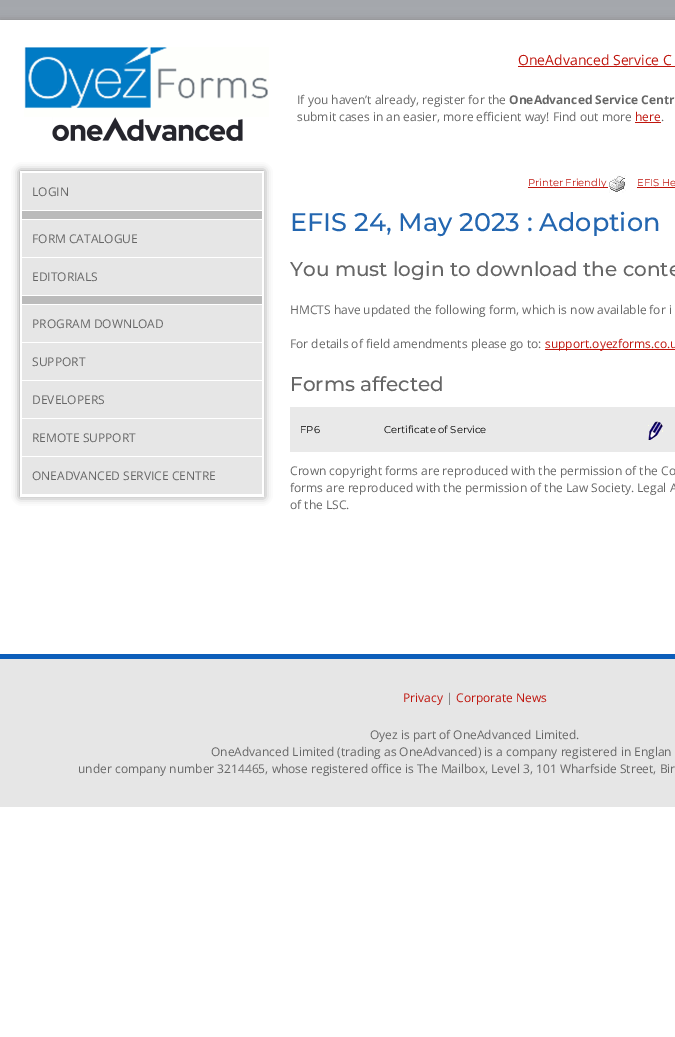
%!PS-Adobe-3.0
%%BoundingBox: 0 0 675 1037
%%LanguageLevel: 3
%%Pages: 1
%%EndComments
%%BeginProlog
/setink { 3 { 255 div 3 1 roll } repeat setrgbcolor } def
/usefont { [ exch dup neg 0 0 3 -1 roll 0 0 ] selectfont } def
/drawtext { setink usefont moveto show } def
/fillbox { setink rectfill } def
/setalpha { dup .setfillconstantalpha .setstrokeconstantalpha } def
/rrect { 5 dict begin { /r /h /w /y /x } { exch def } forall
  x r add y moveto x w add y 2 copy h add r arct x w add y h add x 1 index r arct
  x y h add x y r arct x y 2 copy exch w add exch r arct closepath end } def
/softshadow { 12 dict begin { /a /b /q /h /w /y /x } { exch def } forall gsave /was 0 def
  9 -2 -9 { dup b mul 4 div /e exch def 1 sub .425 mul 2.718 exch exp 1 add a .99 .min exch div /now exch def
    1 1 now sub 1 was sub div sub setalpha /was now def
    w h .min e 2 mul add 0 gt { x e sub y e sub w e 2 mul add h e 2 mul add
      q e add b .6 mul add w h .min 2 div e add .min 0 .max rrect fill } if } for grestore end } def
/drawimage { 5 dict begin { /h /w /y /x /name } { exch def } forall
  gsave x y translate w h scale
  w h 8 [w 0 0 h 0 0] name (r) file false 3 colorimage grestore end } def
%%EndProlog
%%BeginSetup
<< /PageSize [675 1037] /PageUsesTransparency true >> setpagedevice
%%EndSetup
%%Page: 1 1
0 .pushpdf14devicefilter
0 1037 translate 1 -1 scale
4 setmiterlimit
0 0 675 1037 255 255 255 fillbox
(assets/img1.rgb) 0 0 675 20 drawimage
136 136 136 setink
0 20 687 634 0 4 1 softshadow
0 20 675 634 255 255 255 fillbox
(assets/img2.rgb) 24 47 245 94 drawimage
(OneAdvanced Service C) 518 65 /OpenSans-Regular 14 191 21 13 drawtext
518 66 157 1 191 21 13 fillbox
(If you haven’t already, register for the) 297 104 /OpenSans-Regular 12 102 102 102 drawtext
(OneAdvanced Service Centr) 509 104 /OpenSans-Bold 12 102 102 102 drawtext
(submit cases in an easier, more efficient way! Find out more) 297 121 /OpenSans-Regular 12 102 102 102 drawtext
(here) 635 121 /OpenSans-Regular 12 191 21 13 drawtext
635 122 26 1 191 21 13 fillbox
(.) 661 121 /OpenSans-Regular 12 102 102 102 drawtext
136 136 136 setink
20 171 244 326 0 4 1 softshadow
255 255 255 setink
2 setlinewidth
21 172 242 324 rectstroke
22 210 240 1 255 255 255 fillbox
22 173 240 37 230 230 230 fillbox
(LOGIN) 32 196 /OpenSans-Regular 12 102 102 102 drawtext
22 211 240 8 187 187 187 fillbox
22 219 240 1 255 255 255 fillbox
22 257 240 1 255 255 255 fillbox
22 220 240 37 230 230 230 fillbox
(FORM CATALOGUE) 32 243 /OpenSans-Regular 12 102 102 102 drawtext
22 295 240 1 255 255 255 fillbox
22 258 240 37 230 230 230 fillbox
(EDITORIALS) 32 281 /OpenSans-Regular 12 102 102 102 drawtext
22 296 240 8 187 187 187 fillbox
22 304 240 1 255 255 255 fillbox
22 342 240 1 255 255 255 fillbox
22 305 240 37 230 230 230 fillbox
(PROGRAM DOWNLOAD) 32 328 /OpenSans-Regular 12 102 102 102 drawtext
22 380 240 1 255 255 255 fillbox
22 343 240 37 230 230 230 fillbox
(SUPPORT) 32 366 /OpenSans-Regular 12 102 102 102 drawtext
22 418 240 1 255 255 255 fillbox
22 381 240 37 230 230 230 fillbox
(DEVELOPERS) 32 404 /OpenSans-Regular 12 102 102 102 drawtext
22 456 240 1 255 255 255 fillbox
22 419 240 37 230 230 230 fillbox
(REMOTE SUPPORT) 32 442 /OpenSans-Regular 12 102 102 102 drawtext
22 494 240 1 255 255 255 fillbox
22 457 240 37 230 230 230 fillbox
(ONEADVANCED SERVICE CENTRE) 32 480 /OpenSans-Regular 12 102 102 102 drawtext
528 187 80 1 191 21 13 fillbox
(Printer Friendly) 528 186 /Montserrat-Regular 10 191 21 13 drawtext
(assets/img3.rgb) 609 175 17 18 drawimage
(EFIS He) 637 186 /Montserrat-Regular 10 191 21 13 drawtext
637 187 38 1 191 21 13 fillbox
(EFIS 24, May 2023 : Adoption) 290 231 /Montserrat-Medium 25.5 35 102 176 drawtext
(You must login to download the conte) 290 276 /Montserrat-Medium 20 102 102 102 drawtext
(HMCTS have updated the following form, which is now available for i) 290 314 /OpenSans-Regular 12 102 102 102 drawtext
(For details of field amendments please go to:) 290 348 /OpenSans-Regular 12 102 102 102 drawtext
545 349 130 1 191 21 13 fillbox
(support.oyezforms.co.u) 545 348 /OpenSans-Regular 12 191 21 13 drawtext
(Forms affected) 290 391 /Montserrat-Medium 20 102 102 102 drawtext
290 407 385 45 233 233 233 fillbox
(FP6) 300 433 /Montserrat-Regular 10 0 0 0 drawtext
(Certificate of Service) 384 433 /Montserrat-Regular 10 0 0 0 drawtext
(assets/img4.rgb) 648 421 15 19 drawimage
(Crown copyright forms are reproduced with the permission of the Co) 290 475 /OpenSans-Regular 12 102 102 102 drawtext
(forms are reproduced with the permission of the Law Society. Legal A) 290 492 /OpenSans-Regular 12 102 102 102 drawtext
(of the LSC.) 290 509 /OpenSans-Regular 12 102 102 102 drawtext
0 659 675 148 230 230 230 fillbox
0 654 675 5 12 94 186 fillbox
(Privacy) 403 702 /OpenSans-Regular 12 191 21 13 drawtext
(|) 446 702 /OpenSans-Regular 12 102 102 102 drawtext
(Corporate News) 456 702 /OpenSans-Regular 12 191 21 13 drawtext
(Oyez is part of OneAdvanced Limited.) 370 739 /OpenSans-Regular 12 102 102 102 drawtext
(OneAdvanced Limited \(trading as OneAdvanced\) is a company registered in Englan) 211 756 /OpenSans-Regular 12 102 102 102 drawtext
(under company number 3214465, whose registered office is The Mailbox, Level 3, 101 Wharfside Street, Bir) 78 773 /OpenSans-Regular 12 102 102 102 drawtext
.poppdf14devicefilter showpage
%%EOF
